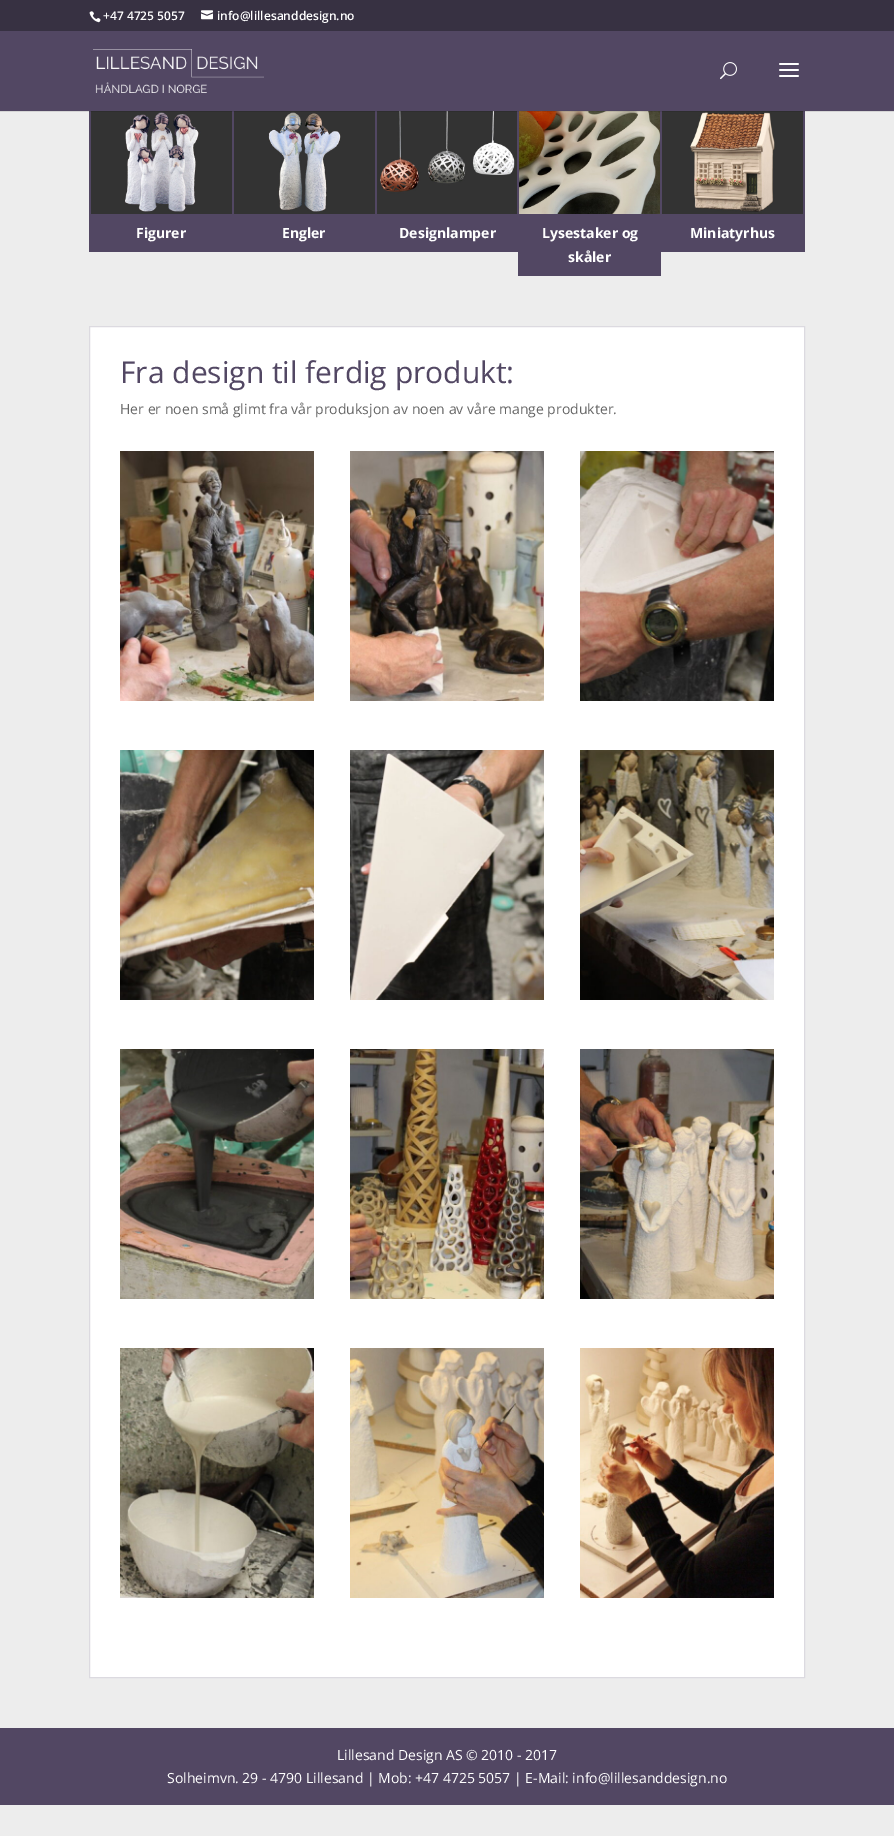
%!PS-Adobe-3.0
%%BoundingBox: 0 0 894 1836
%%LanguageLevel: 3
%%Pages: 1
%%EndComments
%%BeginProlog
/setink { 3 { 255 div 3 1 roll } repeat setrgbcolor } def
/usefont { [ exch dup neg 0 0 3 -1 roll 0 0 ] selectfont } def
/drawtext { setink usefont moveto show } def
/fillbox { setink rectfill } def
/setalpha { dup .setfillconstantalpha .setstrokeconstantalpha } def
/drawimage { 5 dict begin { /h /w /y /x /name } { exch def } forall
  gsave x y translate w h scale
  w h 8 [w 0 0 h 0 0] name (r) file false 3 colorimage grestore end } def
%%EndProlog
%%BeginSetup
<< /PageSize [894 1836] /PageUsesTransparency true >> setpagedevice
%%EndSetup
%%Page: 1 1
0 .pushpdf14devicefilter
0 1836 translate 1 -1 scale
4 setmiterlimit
0 0 894 1836 237 237 237 fillbox
0 0 894 31 55 49 66 fillbox
(assets/img1.rgb) 89 11 12 12 drawimage
(+47 4725 5057) 103 20 /OpenSans-SemiBold 12 255 255 255 drawtext
(assets/img2.rgb) 201 10 12 10 drawimage
(info@lillesanddesign.no) 217 20 /OpenSans-SemiBold 12 255 255 255 drawtext
232 110 2 104 82 71 99 fillbox
89 110 2 104 82 71 99 fillbox
(assets/img6.rgb) 91 111 141 103 drawimage
375 110 2 104 82 71 99 fillbox
(assets/img7.rgb) 234 111 141 103 drawimage
517 110 2 104 82 71 99 fillbox
(assets/img8.rgb) 377 111 140 103 drawimage
660 110 2 104 82 71 99 fillbox
(assets/img9.rgb) 519 111 141 103 drawimage
803 110 2 104 82 71 99 fillbox
(assets/img10.rgb) 662 111 141 103 drawimage
0.1 setalpha
0 111 894 1 0 0 0 fillbox
1 setalpha
0 31 894 80 82 71 99 fillbox
(assets/img3.rgb) 93 49 171 44 drawimage
(assets/img4.rgb) 720 62 17 18 drawimage
(assets/img5.rgb) 779 63 20 14 drawimage
89 214 429 38 82 71 99 fillbox
(Figurer) 136 238 /OpenSans-Bold 14 255 255 255 drawtext
(Engler) 282 238 /OpenSans-Bold 14 255 255 255 drawtext
(Designlamper) 399 238 /OpenSans-Bold 14 255 255 255 drawtext
518 214 143 62 82 71 99 fillbox
(Lysestaker og) 542 238 /OpenSans-Bold 14 255 255 255 drawtext
(skåler) 568 262 /OpenSans-Bold 14 255 255 255 drawtext
661 214 144 38 82 71 99 fillbox
(Miniatyrhus) 690 238 /OpenSans-Bold 14 255 255 255 drawtext
89.5 326.5 moveto 804.5 326.5 lineto 804.5 1677.5 lineto 89.5 1677.5 lineto closepath gsave fill grestore
220 218 224 setink
stroke
(Fra design til ferdig produkt:) 120 383 /OpenSans-Regular 30 82 71 99 drawtext
(Her er noen små glimt fra vår produksjon av noen av våre mange produkter.) 120 414 /OpenSans-Regular 14 102 102 102 drawtext
(assets/img11.rgb) 120 451 194 250 drawimage
(assets/img12.rgb) 350 451 194 250 drawimage
(assets/img13.rgb) 580 451 194 250 drawimage
(assets/img14.rgb) 120 750 194 250 drawimage
(assets/img15.rgb) 350 750 194 250 drawimage
(assets/img16.rgb) 580 750 194 250 drawimage
(assets/img17.rgb) 120 1049 194 250 drawimage
(assets/img18.rgb) 350 1049 194 250 drawimage
(assets/img19.rgb) 580 1049 194 250 drawimage
(assets/img20.rgb) 120 1348 194 250 drawimage
(assets/img21.rgb) 350 1348 194 250 drawimage
(assets/img22.rgb) 580 1348 194 250 drawimage
0 1728 894 77 82 71 99 fillbox
(Lillesand Design AS © 2010 - 2017) 337 1760 /OpenSans-Regular 14 255 255 255 drawtext
(Solheimvn. 29 - 4790 Lillesand | Mob: +47 4725 5057 | E-Mail: info@lillesanddesign.no) 167 1783 /OpenSans-Regular 14 255 255 255 drawtext
.poppdf14devicefilter showpage
%%EOF
